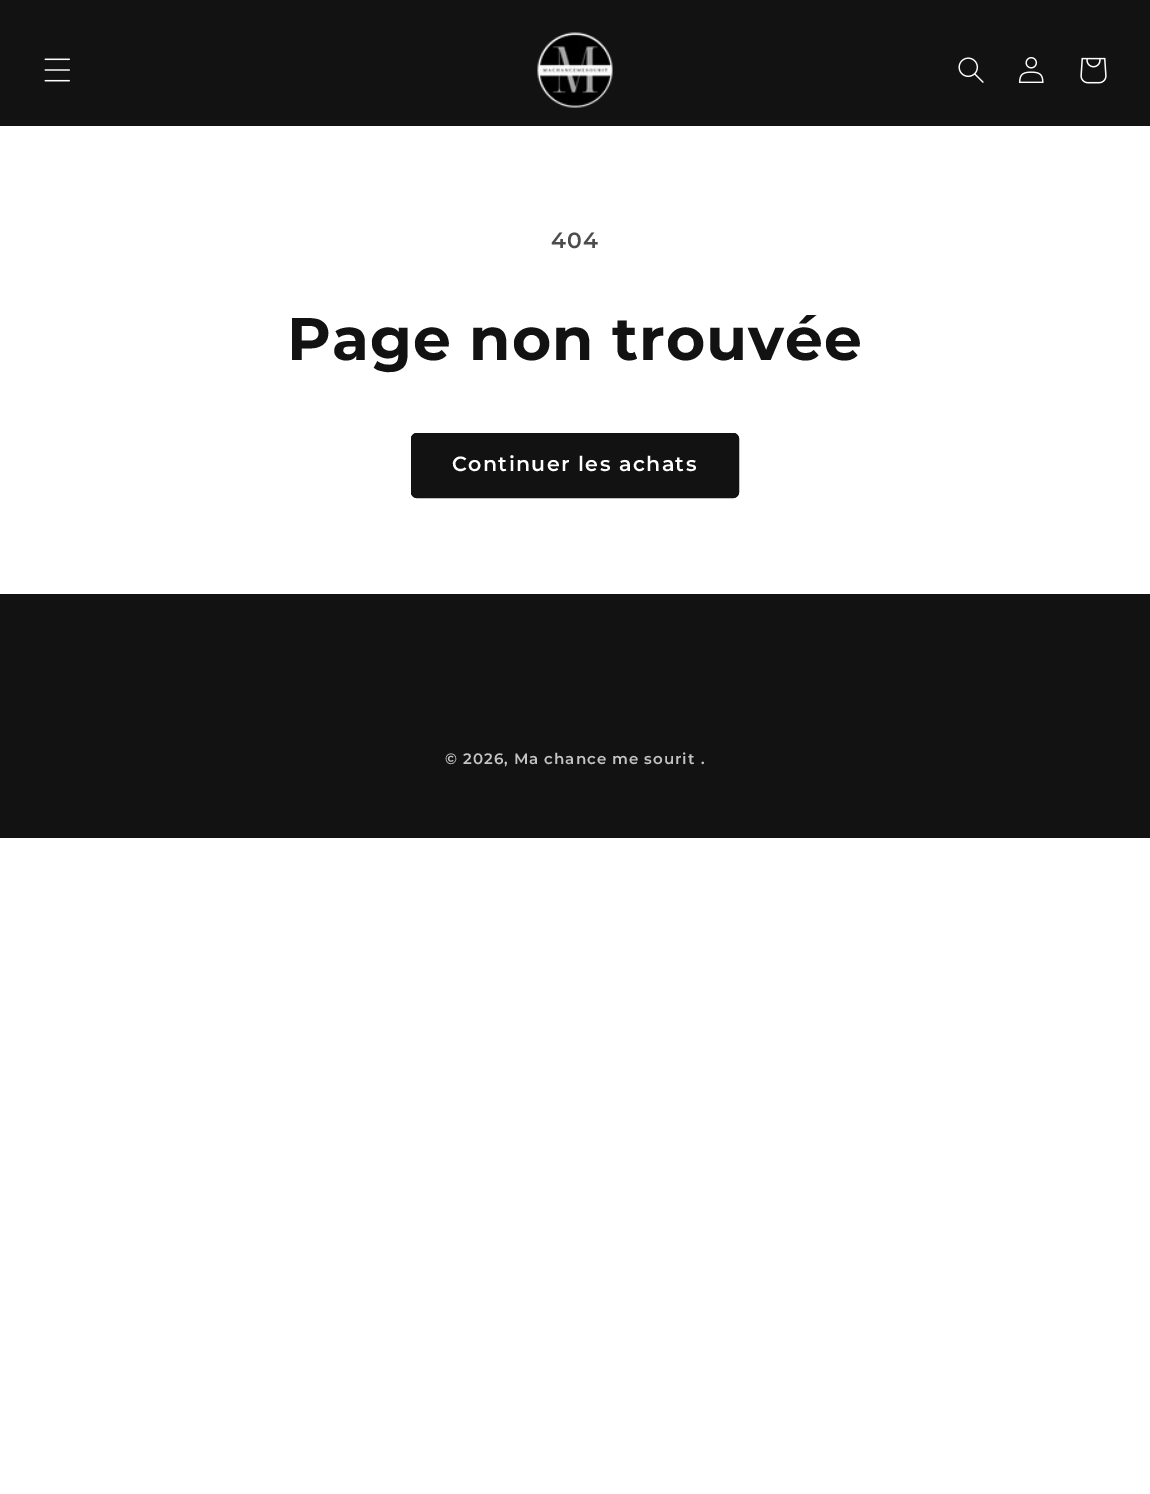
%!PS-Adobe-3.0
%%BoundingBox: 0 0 1150 1494
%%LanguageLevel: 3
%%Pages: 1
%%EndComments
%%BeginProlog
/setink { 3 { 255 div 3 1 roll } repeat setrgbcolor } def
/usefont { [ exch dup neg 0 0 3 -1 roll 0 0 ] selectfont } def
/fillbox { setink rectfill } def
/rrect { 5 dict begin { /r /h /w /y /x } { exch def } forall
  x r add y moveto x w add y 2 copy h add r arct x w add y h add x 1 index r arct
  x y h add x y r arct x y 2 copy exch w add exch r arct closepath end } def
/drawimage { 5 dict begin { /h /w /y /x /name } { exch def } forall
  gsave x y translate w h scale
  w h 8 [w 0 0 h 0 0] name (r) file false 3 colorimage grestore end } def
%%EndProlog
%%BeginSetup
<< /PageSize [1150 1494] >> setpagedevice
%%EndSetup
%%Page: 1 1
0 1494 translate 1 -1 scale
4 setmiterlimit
0 0 1150 1494 255 255 255 fillbox
0 0 1150 126 18 18 18 fillbox
(assets/img1.rgb) 44 58 26 24 drawimage
(assets/img2.rgb) 537 32 76 76 drawimage
(assets/img3.rgb) 958 57 26 26 drawimage
(assets/img4.rgb) 1018 57 26 26 drawimage
(assets/img5.rgb) 1080 57 27 27 drawimage
/Montserrat-SemiBold 22 usefont
77 77 77 setink
551 248 moveto 1 0 (404) ashow
/Montserrat-Bold 60 usefont
18 18 18 setink
287 360 moveto 0.9 0 (Page non trouvée) ashow
411 433 328 65 6 rrect fill
411.5 433.5 327 64 5.5 rrect stroke
/Montserrat-SemiBold 20.6 usefont
255 255 255 setink
452 471 moveto 1.4 0 (Continuer les achats) ashow
0 594 1150 244 18 18 18 fillbox
/Montserrat-SemiBold 15.1 usefont
196 196 196 setink
445 764 moveto 0.95 0 (© 2026, Ma chance me sourit) ashow
701 764 moveto 0.95 0 (.) ashow
showpage
%%EOF
